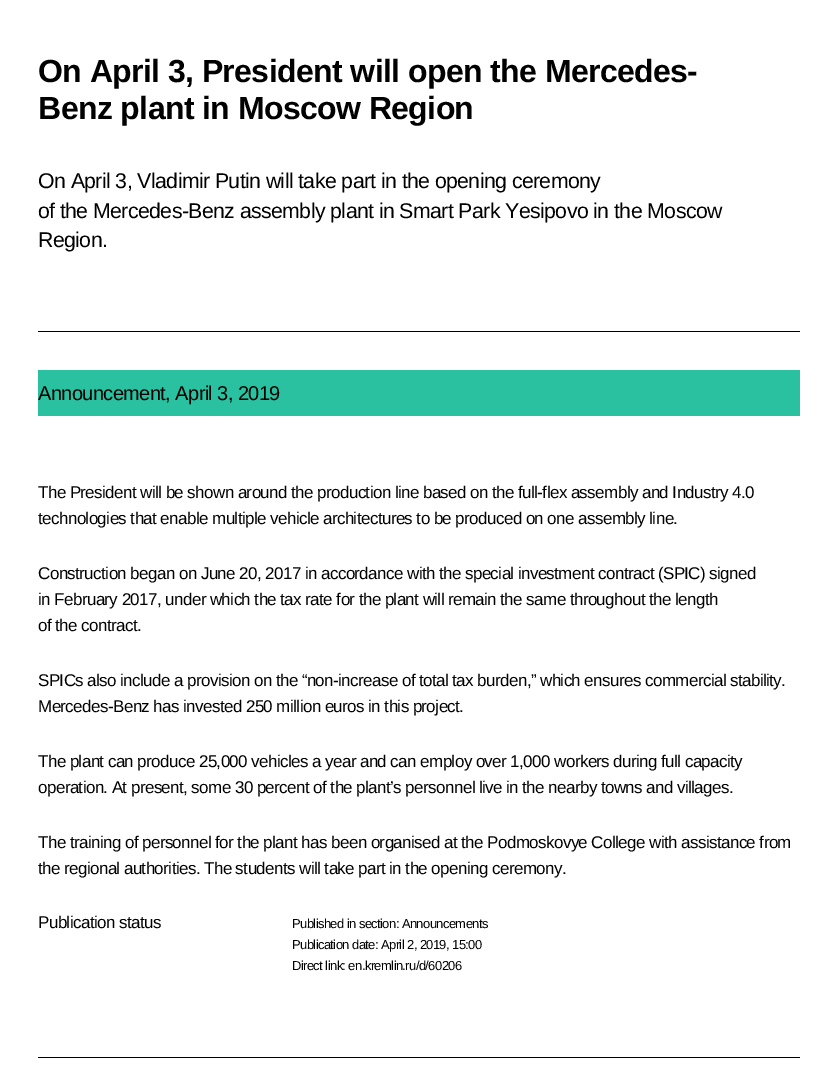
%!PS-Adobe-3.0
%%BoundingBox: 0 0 838 1078
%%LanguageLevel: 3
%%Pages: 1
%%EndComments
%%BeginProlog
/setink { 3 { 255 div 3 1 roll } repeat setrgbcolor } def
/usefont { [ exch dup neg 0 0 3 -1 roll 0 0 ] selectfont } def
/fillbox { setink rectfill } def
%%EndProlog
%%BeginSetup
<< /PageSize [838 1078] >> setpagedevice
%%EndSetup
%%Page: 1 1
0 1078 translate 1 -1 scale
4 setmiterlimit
0 0 838 1078 255 255 255 fillbox
38 1057 762 1 0 0 0 fillbox
38 331 762 1 0 0 0 fillbox
/LiberationSans-Bold 32 usefont
38 82 moveto -0.6 0 (On April 3, President will open the Mercedes-) ashow
38 119 moveto -0.6 0 (Benz plant in Moscow Region) ashow
/LiberationSans-Regular 21.3 usefont
38 188 moveto -0.6 0 (On April 3, Vladimir Putin will take part in the opening ceremony) ashow
38 218 moveto -0.6 0 (of the Mercedes-Benz assembly plant in Smart Park Yesipovo in the Moscow) ashow
38 247 moveto -0.6 0 (Region.) ashow
38 370 762 46 42 193 160 fillbox
/LiberationSans-Regular 20 usefont
0 0 0 setink
38 400 moveto -0.6 0 (Announcement, April 3, 2019) ashow
/LiberationSans-Regular 17 usefont
38 498 moveto -0.6 0 (The President will be shown around the production line based on the full-flex assembly and Industry 4.0) ashow
38 524 moveto -0.6 0 (technologies that enable multiple vehicle architectures to be produced on one assembly line.) ashow
38 579 moveto -0.6 0 (Construction began on June 20, 2017 in accordance with the special investment contract \(SPIC\) signed) ashow
38 605 moveto -0.6 0 (in February 2017, under which the tax rate for the plant will remain the same throughout the length) ashow
38 631 moveto -0.6 0 (of the contract.) ashow
38 686 moveto -0.6 0 (SPICs also include a provision on the “non-increase of total tax burden,” which ensures commercial stability.) ashow
38 712 moveto -0.6 0 (Mercedes-Benz has invested 250 million euros in this project.) ashow
38 767 moveto -0.6 0 (The plant can produce 25,000 vehicles a year and can employ over 1,000 workers during full capacity) ashow
38 793 moveto -0.6 0 (operation. At present, some 30 percent of the plant’s personnel live in the nearby towns and villages.) ashow
38 848 moveto -0.6 0 (The training of personnel for the plant has been organised at the Podmoskovye College with assistance from) ashow
38 874 moveto -0.6 0 (the regional authorities. The students will take part in the opening ceremony.) ashow
38 928 moveto -0.6 0 (Publication status) ashow
/LiberationSans-Regular 13 usefont
292 928 moveto -0.6 0 (Published in section: Announcements) ashow
292 949 moveto -0.6 0 (Publication date: April 2, 2019, 15:00) ashow
292 970 moveto -0.6 0 (Direct link: en.kremlin.ru/d/60206) ashow
showpage
%%EOF
